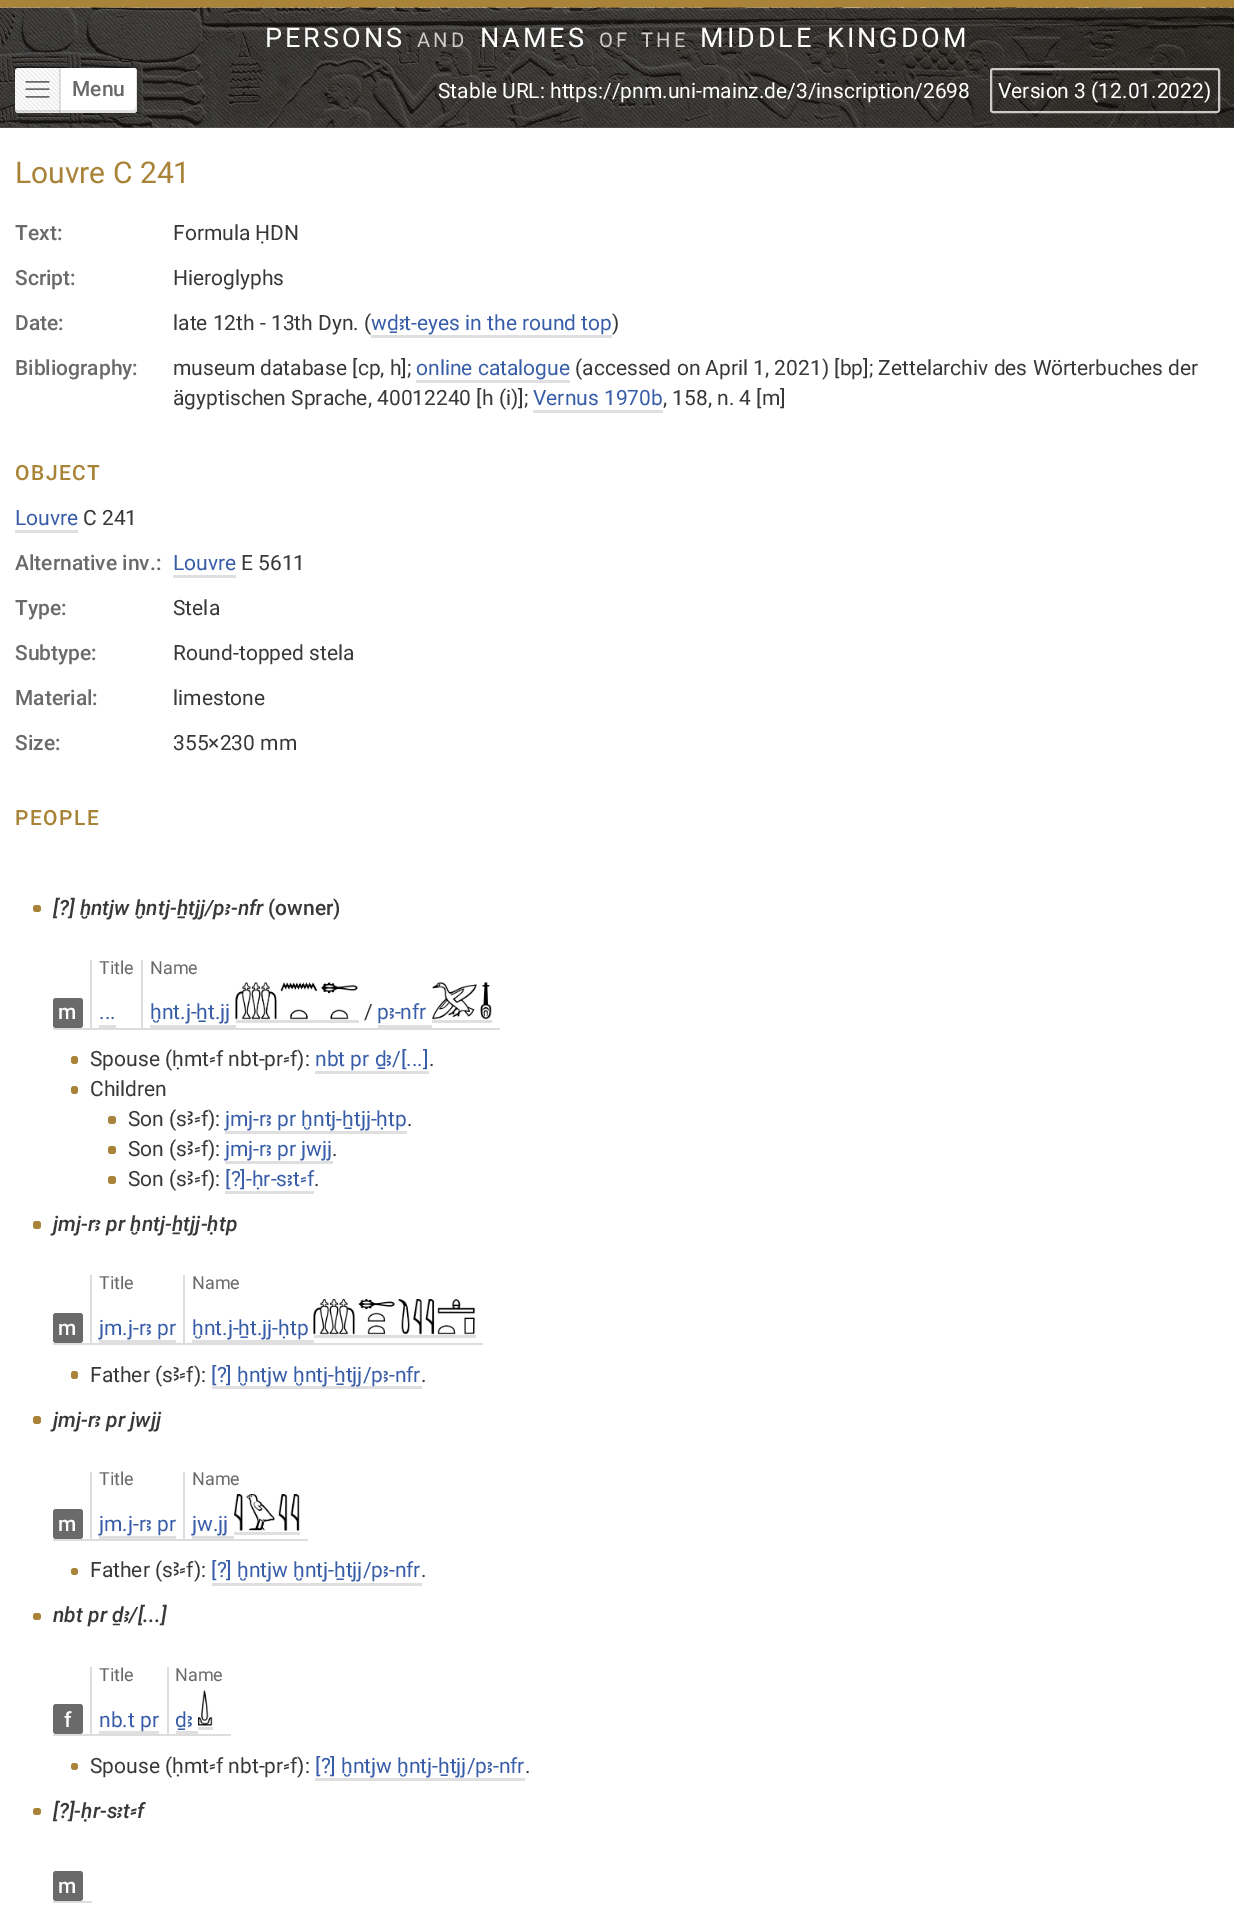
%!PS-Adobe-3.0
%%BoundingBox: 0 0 1234 1920
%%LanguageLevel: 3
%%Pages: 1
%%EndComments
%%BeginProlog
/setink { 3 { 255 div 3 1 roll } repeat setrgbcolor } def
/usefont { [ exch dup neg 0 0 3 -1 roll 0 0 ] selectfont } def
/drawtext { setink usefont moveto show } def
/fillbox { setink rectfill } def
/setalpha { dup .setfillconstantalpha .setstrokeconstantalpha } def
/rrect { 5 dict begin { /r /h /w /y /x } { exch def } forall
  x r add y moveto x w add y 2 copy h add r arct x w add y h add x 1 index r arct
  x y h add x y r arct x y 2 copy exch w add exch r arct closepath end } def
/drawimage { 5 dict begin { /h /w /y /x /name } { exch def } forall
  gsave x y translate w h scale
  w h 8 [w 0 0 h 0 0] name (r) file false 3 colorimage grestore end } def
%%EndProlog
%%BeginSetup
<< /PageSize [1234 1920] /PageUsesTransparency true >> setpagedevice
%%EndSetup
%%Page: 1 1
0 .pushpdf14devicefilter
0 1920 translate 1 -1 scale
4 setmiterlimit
0 0 1234 1920 255 255 255 fillbox
0 0 1234 8 168 131 56 fillbox
0 127 1234 1 94 94 93 fillbox
(assets/img1.rgb) 0 7 1234 121 drawimage
(assets/img2.rgb) 0 7 1234 121 drawimage
/Roboto-Regular 27 usefont
255 255 255 setink
265 47 moveto 3 0 (PERSONS) ashow
/Roboto-Regular 20.25 usefont
206 205 204 setink
417 47 moveto 3 0 (AND) ashow
/Roboto-Regular 27 usefont
255 255 255 setink
480 47 moveto 3 0 (NAMES) ashow
/Roboto-Regular 20.25 usefont
206 205 204 setink
599 47 moveto 3 0 32 3 0 (OF THE) awidthshow
/Roboto-Regular 27 usefont
255 255 255 setink
700 47 moveto 3 0 32 3 0 (MIDDLE KINGDOM) awidthshow
0.06 setalpha
0 0 0 setink
2 setlinewidth
15 67 122 46 rectstroke
1 setalpha
255 255 255 setink
15 68 122 45 3 rrect fill
0.12 setalpha
0 0 0 setink
15 106 moveto 15 110 lineto 15 112 16 113 18 113 curveto 134 113 lineto 136 113 137 112 137 110 curveto 137 71 lineto 137 70 137 69 136 69 curveto 136 106 lineto 136 108 135 110 134 110 curveto 18 110 lineto 16 110 15 108 15 106 curveto closepath fill
0.25 setalpha
255 255 255 setink
17 112 moveto 62 113 lineto 62 68 lineto 60 68 lineto 60 112 lineto closepath fill
1 setalpha
(assets/img3.rgb) 15 68 45 44 drawimage
0.12 setalpha
59 68 2 45 0 0 0 fillbox
1 setalpha
(assets/img4.rgb) 25 81 25 17 drawimage
(Menu) 72 96 /Roboto-Medium 21 106 106 106 drawtext
(Stable URL: https://pnm.uni-mainz.de/3/inscription/2698) 438 98 /Roboto-Regular 21 255 255 255 drawtext
0.75 setalpha
991 69 228 43 2 rrect stroke
1 setalpha
(Version 3 \(12.01.2022\)) 998 98 /Roboto-Regular 21 255 255 255 drawtext
(Louvre C 241) 15 183 /Roboto-Regular 30 168 131 56 drawtext
(Text:) 15 240 /Roboto-Medium 21 106 106 106 drawtext
(Formula ḤDN) 173 240 /Roboto-Regular 21 56 56 56 drawtext
(Script:) 15 285 /Roboto-Medium 21 106 106 106 drawtext
(Hieroglyphs) 173 285 /Roboto-Regular 21 56 56 56 drawtext
(Date:) 15 330 /Roboto-Medium 21 106 106 106 drawtext
(late 12th - 13th Dyn. \() 173 330 /Roboto-Regular 21 56 56 56 drawtext
(wḏꜣt-eyes in the round top) 371 330 /Roboto-Regular 21 56 93 168 drawtext
371 335 241 3 223 223 223 fillbox
(\)) 612 330 /Roboto-Regular 21 56 56 56 drawtext
(Bibliography:) 15 375 /Roboto-Medium 21 106 106 106 drawtext
(museum database [cp, h];) 173 375 /Roboto-Regular 21 56 56 56 drawtext
(online catalogue) 416 375 /Roboto-Regular 21 56 93 168 drawtext
416 380 154 3 223 223 223 fillbox
(\(accessed on April 1, 2021\) [bp]; Zettelarchiv des Wörterbuches der) 575 375 /Roboto-Regular 21 56 56 56 drawtext
(ägyptischen Sprache, 40012240 [h \(i\)];) 173 405 /Roboto-Regular 21 56 56 56 drawtext
(Vernus 1970b) 533 405 /Roboto-Regular 21 56 93 168 drawtext
533 410 130 3 223 223 223 fillbox
(, 158, n. 4 [m]) 663 405 /Roboto-Regular 21 56 56 56 drawtext
/Roboto-Medium 21 usefont
168 131 56 setink
15 480 moveto 1.5 0 (OBJECT) ashow
(Louvre) 15 525 /Roboto-Regular 21 56 93 168 drawtext
15 530 63 3 223 223 223 fillbox
(C 241) 83 525 /Roboto-Regular 21 56 56 56 drawtext
(Alternative inv.:) 15 570 /Roboto-Medium 21 106 106 106 drawtext
(Louvre) 173 570 /Roboto-Regular 21 56 93 168 drawtext
173 575 63 3 223 223 223 fillbox
(E 5611) 241 570 /Roboto-Regular 21 56 56 56 drawtext
(Type:) 15 615 /Roboto-Medium 21 106 106 106 drawtext
(Stela) 173 615 /Roboto-Regular 21 56 56 56 drawtext
(Subtype:) 15 660 /Roboto-Medium 21 106 106 106 drawtext
(Round-topped stela) 173 660 /Roboto-Regular 21 56 56 56 drawtext
(Material:) 15 705 /Roboto-Medium 21 106 106 106 drawtext
(limestone) 173 705 /Roboto-Regular 21 56 56 56 drawtext
(Size:) 15 750 /Roboto-Medium 21 106 106 106 drawtext
(355×230 mm) 173 750 /Roboto-Regular 21 56 56 56 drawtext
/Roboto-Medium 21 usefont
168 131 56 setink
15 825 moveto 1.5 0 (PEOPLE) ashow
33 905 8 7 3 rrect fill
([?] ḫntjw ḫntj-ẖtjj/pꜣ-nfr) 53 915 /Roboto-MediumItalic 21 56 56 56 drawtext
(\(owner\)) 268 915 /Roboto-Medium 21 56 56 56 drawtext
(Title) 99 974 /Roboto-Regular 18 106 106 106 drawtext
(Name) 150 974 /Roboto-Regular 18 106 106 106 drawtext
141 1028 359 2 221 221 221 fillbox
141 960 2 69 221 221 221 fillbox
90 1028 53 2 221 221 221 fillbox
90 960 2 69 221 221 221 fillbox
53 1028 39 2 221 221 221 fillbox
106 106 106 setink
53 998 30 30 3 rrect fill
(m) 58 1019 /Roboto-Medium 21 255 255 255 drawtext
(...) 99 1019 /Roboto-Regular 21 56 93 168 drawtext
99 1025 17 3 223 223 223 fillbox
(ḫnt.j-ẖt.jj) 150 1019 /Roboto-Regular 21 56 93 168 drawtext
150 1025 86 3 223 223 223 fillbox
236 1020 123 3 223 223 223 fillbox
(assets/img5.rgb) 235 982 123 38 drawimage
(/) 364 1019 /Roboto-Regular 21 56 56 56 drawtext
(pꜣ-nfr) 377 1019 /Roboto-Regular 21 56 93 168 drawtext
378 1025 54 3 223 223 223 fillbox
432 1020 60 3 223 223 223 fillbox
(assets/img6.rgb) 432 982 60 38 drawimage
168 131 56 setink
71 1056 7 8 3 rrect fill
(Spouse \(ḥmt⸗f nbt-pr⸗f\):) 90 1066 /Roboto-Regular 21 56 56 56 drawtext
(nbt pr ḏꜣ/[...]) 315 1066 /Roboto-Regular 21 56 93 168 drawtext
315 1071 114 3 223 223 223 fillbox
(.) 429 1066 /Roboto-Regular 21 56 56 56 drawtext
168 131 56 setink
71 1086 7 8 3 rrect fill
(Children) 90 1096 /Roboto-Regular 21 56 56 56 drawtext
168 131 56 setink
108 1116 8 8 3 rrect fill
(Son \(sꜢ⸗f\):) 128 1126 /Roboto-Regular 21 56 56 56 drawtext
(jmj-rꜣ pr ḫntj-ẖtjj-ḥtp) 225 1126 /Roboto-Regular 21 56 93 168 drawtext
225 1131 182 3 223 223 223 fillbox
(.) 407 1126 /Roboto-Regular 21 56 56 56 drawtext
168 131 56 setink
108 1146 8 8 3 rrect fill
(Son \(sꜢ⸗f\):) 128 1156 /Roboto-Regular 21 56 56 56 drawtext
(jmj-rꜣ pr jwjj) 225 1156 /Roboto-Regular 21 56 93 168 drawtext
225 1161 108 3 223 223 223 fillbox
(.) 332 1156 /Roboto-Regular 21 56 56 56 drawtext
168 131 56 setink
108 1176 8 8 3 rrect fill
(Son \(sꜢ⸗f\):) 128 1186 /Roboto-Regular 21 56 56 56 drawtext
([?]-ḥr-sꜣt⸗f) 225 1186 /Roboto-Regular 21 56 93 168 drawtext
225 1191 89 3 223 223 223 fillbox
(.) 314 1186 /Roboto-Regular 21 56 56 56 drawtext
168 131 56 setink
33 1221 8 8 3 rrect fill
(jmj-rꜣ pr ḫntj-ẖtjj-ḥtp) 53 1231 /Roboto-MediumItalic 21 56 56 56 drawtext
gsave
94.5 1276.5 moveto 181.5 1276.5 lineto 183 1276.5 184.5 1278 184.5 1279.5 curveto 184.5 1299 lineto 93 1299 lineto 93 1279.5 lineto 93 1278 93.5 1276.5 94.5 1276.5 curveto closepath clip newpath
(Title) 99 1289 /Roboto-Regular 18 106 106 106 drawtext
grestore
gsave
187.5 1276.5 moveto 480 1276.5 lineto 481.5 1276.5 483 1278 483 1279.5 curveto 483 1299 lineto 186 1299 lineto 186 1279.5 lineto 186 1278 186.5 1276.5 187.5 1276.5 curveto closepath clip newpath
(Name) 192 1289 /Roboto-Regular 18 106 106 106 drawtext
grestore
183 1343 300 2 221 221 221 fillbox
183 1275 2 69 221 221 221 fillbox
90 1343 95 2 221 221 221 fillbox
90 1275 2 69 221 221 221 fillbox
53 1343 39 2 221 221 221 fillbox
106 106 106 setink
53 1313 30 30 3 rrect fill
(m) 58 1335 /Roboto-Medium 21 255 255 255 drawtext
(jm.j-rꜣ pr) 99 1335 /Roboto-Regular 21 56 93 168 drawtext
99 1340 77 3 223 223 223 fillbox
(ḫnt.j-ẖt.jj-ḥtp) 192 1335 /Roboto-Regular 21 56 93 168 drawtext
192 1340 122 3 223 223 223 fillbox
314 1335 162 3 223 223 223 fillbox
(assets/img7.rgb) 313 1299 162 36 drawimage
168 131 56 setink
71 1371 7 8 3 rrect fill
(Father \(sꜢ⸗f\):) 90 1382 /Roboto-Regular 21 56 56 56 drawtext
212 1386 210 3 223 223 223 fillbox
([?] ḫntjw ḫntj-ẖtjj/pꜣ-nfr) 211 1382 /Roboto-Regular 21 56 93 168 drawtext
(.) 421 1382 /Roboto-Regular 21 56 56 56 drawtext
168 131 56 setink
33 1416 8 8 3 rrect fill
(jmj-rꜣ pr jwjj) 53 1427 /Roboto-MediumItalic 21 56 56 56 drawtext
(Title) 99 1485 /Roboto-Regular 18 106 106 106 drawtext
(Name) 192 1485 /Roboto-Regular 18 106 106 106 drawtext
183 1539 125 2 221 221 221 fillbox
183 1472 2 69 221 221 221 fillbox
90 1539 95 2 221 221 221 fillbox
90 1472 2 69 221 221 221 fillbox
53 1539 39 2 221 221 221 fillbox
106 106 106 setink
53 1509 30 30 3 rrect fill
(m) 58 1531 /Roboto-Medium 21 255 255 255 drawtext
(jm.j-rꜣ pr) 99 1531 /Roboto-Regular 21 56 93 168 drawtext
99 1536 77 3 223 223 223 fillbox
(jw.jj) 192 1531 /Roboto-Regular 21 56 93 168 drawtext
192 1536 42 3 223 223 223 fillbox
234 1532 66 3 223 223 223 fillbox
(assets/img8.rgb) 234 1494 66 37 drawimage
168 131 56 setink
71 1568 7 7 3 rrect fill
(Father \(sꜢ⸗f\):) 90 1577 /Roboto-Regular 21 56 56 56 drawtext
([?] ḫntjw ḫntj-ẖtjj/pꜣ-nfr) 211 1577 /Roboto-Regular 21 56 93 168 drawtext
212 1583 210 3 223 223 223 fillbox
(.) 421 1577 /Roboto-Regular 21 56 56 56 drawtext
168 131 56 setink
33 1613 8 7 3 rrect fill
(nbt pr ḏꜣ/[...]) 53 1622 /Roboto-MediumItalic 21 56 56 56 drawtext
(Title) 99 1681 /Roboto-Regular 18 106 106 106 drawtext
(Name) 175 1681 /Roboto-Regular 18 106 106 106 drawtext
167 1734 64 2 221 221 221 fillbox
167 1667 2 69 221 221 221 fillbox
90 1734 78 2 221 221 221 fillbox
90 1667 2 69 221 221 221 fillbox
53 1734 39 2 221 221 221 fillbox
106 106 106 setink
53 1704 30 30 3 rrect fill
(f) 64 1727 /Roboto-Medium 21 255 255 255 drawtext
99 1731 60 3 223 223 223 fillbox
(nb.t pr) 99 1727 /Roboto-Regular 21 56 93 168 drawtext
(ḏꜣ) 175 1727 /Roboto-Regular 21 56 93 168 drawtext
176 1731 22 3 223 223 223 fillbox
198 1727 15 3 223 223 223 fillbox
(assets/img9.rgb) 198 1690 15 36 drawimage
168 131 56 setink
71 1763 7 7 3 rrect fill
(Spouse \(ḥmt⸗f nbt-pr⸗f\):) 90 1773 /Roboto-Regular 21 56 56 56 drawtext
([?] ḫntjw ḫntj-ẖtjj/pꜣ-nfr) 315 1773 /Roboto-Regular 21 56 93 168 drawtext
315 1778 210 3 223 223 223 fillbox
(.) 525 1773 /Roboto-Regular 21 56 56 56 drawtext
168 131 56 setink
33 1808 8 7 3 rrect fill
([?]-ḥr-sꜣt⸗f) 53 1818 /Roboto-MediumItalic 21 56 56 56 drawtext
53 1901 39 2 221 221 221 fillbox
106 106 106 setink
53 1871 30 30 3 rrect fill
(m) 58 1893 /Roboto-Medium 21 255 255 255 drawtext
.poppdf14devicefilter showpage
%%EOF
